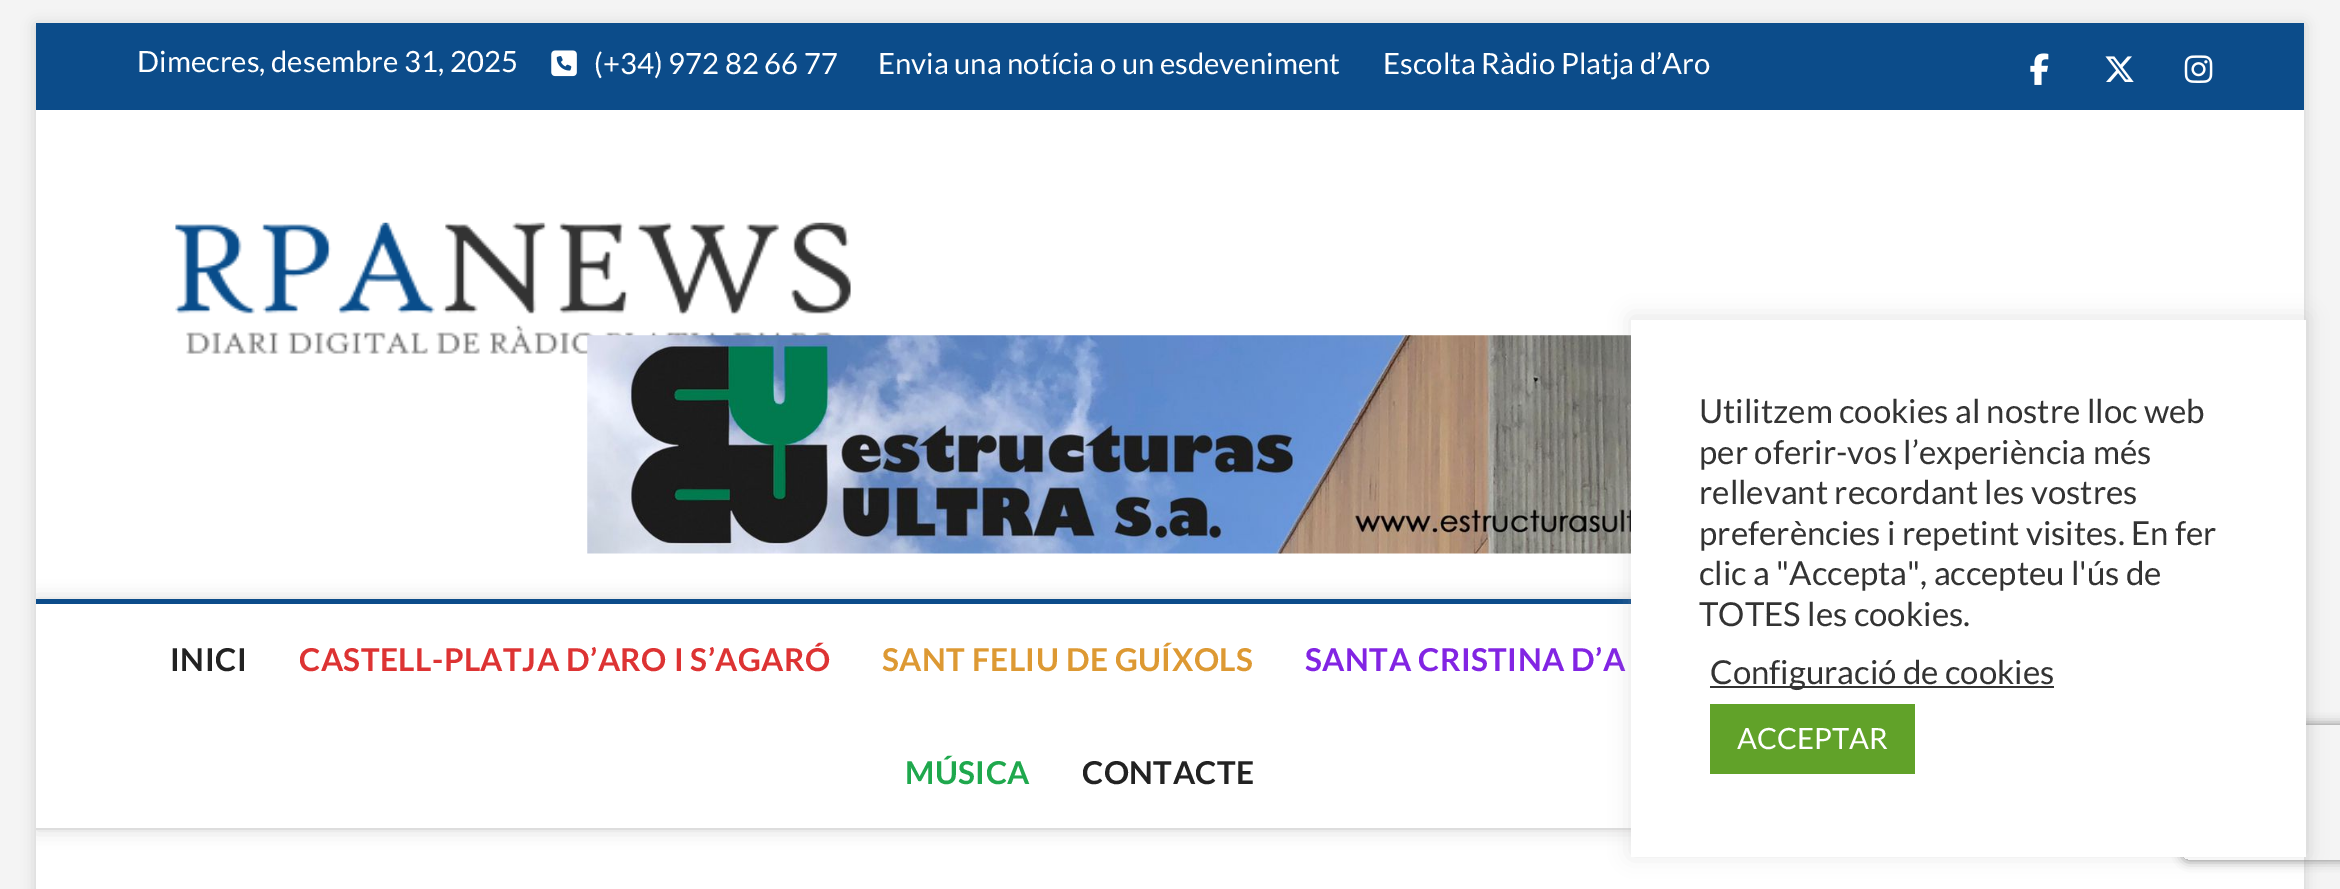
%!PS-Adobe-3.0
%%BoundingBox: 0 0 2340 889
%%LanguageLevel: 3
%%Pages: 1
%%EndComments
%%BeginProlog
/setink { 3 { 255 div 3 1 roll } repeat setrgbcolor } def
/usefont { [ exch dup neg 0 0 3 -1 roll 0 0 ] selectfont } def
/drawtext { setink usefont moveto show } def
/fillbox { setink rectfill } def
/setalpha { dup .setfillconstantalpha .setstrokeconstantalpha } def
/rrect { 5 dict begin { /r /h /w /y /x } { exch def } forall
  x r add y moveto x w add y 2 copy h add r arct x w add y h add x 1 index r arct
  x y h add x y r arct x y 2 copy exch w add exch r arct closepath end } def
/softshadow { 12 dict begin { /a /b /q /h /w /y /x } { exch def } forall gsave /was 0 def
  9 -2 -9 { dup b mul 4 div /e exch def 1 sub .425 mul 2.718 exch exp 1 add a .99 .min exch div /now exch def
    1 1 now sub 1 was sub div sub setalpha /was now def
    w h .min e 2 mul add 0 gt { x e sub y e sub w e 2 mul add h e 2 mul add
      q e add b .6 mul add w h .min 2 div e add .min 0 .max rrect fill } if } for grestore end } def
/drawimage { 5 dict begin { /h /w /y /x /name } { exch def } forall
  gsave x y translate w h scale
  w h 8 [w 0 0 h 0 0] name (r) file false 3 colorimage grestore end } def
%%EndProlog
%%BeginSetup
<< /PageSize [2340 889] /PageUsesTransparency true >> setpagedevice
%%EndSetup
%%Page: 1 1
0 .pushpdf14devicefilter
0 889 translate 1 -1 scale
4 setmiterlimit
0 0 2340 889 244 244 244 fillbox
0 0 0 setink
36 25 2268 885 0 7 0.15 softshadow
36 110 2268 779 255 255 255 fillbox
36 23 2268 87 12 76 138 fillbox
(Dimecres, desembre 31, 2025) 137 72 /Lato-Regular 29.25 255 255 255 drawtext
(assets/img1.rgb) 551 50 26 27 drawimage
(\(+34\) 972 82 66 77) 594 74 /Lato-Regular 29.25 255 255 255 drawtext
(Envia una notícia o un esdeveniment) 878 74 /Lato-Regular 29.25 255 255 255 drawtext
(Escolta Ràdio Platja d’Aro) 1383 74 /Lato-Regular 29.25 255 255 255 drawtext
(assets/img2.rgb) 2030 53 19 32 drawimage
(assets/img3.rgb) 2105 56 29 26 drawimage
(assets/img4.rgb) 2184 55 29 28 drawimage
(assets/img5.rgb) 175 222 676 132 drawimage
(assets/img6.rgb) 587 335 1044 219 drawimage
gsave
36 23 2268 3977 rectclip
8 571 moveto 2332 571 lineto 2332 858 lineto 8 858 lineto closepath 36 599 moveto 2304 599 lineto 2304 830 lineto 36 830 lineto closepath eoclip newpath
0 0 0 setink
36 599 2268 231 0 9 0.15 softshadow
grestore
36 599 1595 5 12 76 138 fillbox
36 828 1595 2 221 221 221 fillbox
/Lato-Bold 31.5 usefont
34 34 34 setink
170 671 moveto 0.45 0 (INICI) ashow
221 51 51 setink
299 671 moveto 0.45 0 (CASTELL-PLATJA D’ARO I S’AGARÓ) ashow
221 153 51 setink
882 671 moveto 0.45 0 (SANT FELIU DE GUÍXOLS) ashow
130 36 227 setink
1305 671 moveto 0.45 0 (SANTA CRISTINA D’A) ashow
31 168 77 setink
905 784 moveto 0.45 0 (MÚSICA) ashow
34 34 34 setink
1082 784 moveto 0.45 0 (CONTACTE) ashow
172 171 171 setink
1631 317 675 538 0 11 0.3 softshadow
gsave
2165 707 moveto 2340 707 lineto 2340 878 lineto 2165 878 lineto closepath 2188 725 moveto 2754 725 lineto 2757 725 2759 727 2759 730 curveto 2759 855 lineto 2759 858 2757 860 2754 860 curveto 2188 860 lineto 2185 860 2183 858 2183 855 curveto 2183 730 lineto 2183 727 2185 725 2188 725 curveto closepath eoclip newpath
128 128 128 setink
2183 725 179 135 5 5.5 1 softshadow
grestore
1631 320 675 537 255 255 255 fillbox
(Utilitzem cookies al nostre lloc web) 1699 423 /Lato-Regular 33 51 51 51 drawtext
(per oferir-vos l’experiència més) 1699 464 /Lato-Regular 33 51 51 51 drawtext
(rellevant recordant les vostres) 1699 504 /Lato-Regular 33 51 51 51 drawtext
(preferències i repetint visites. En fer) 1699 545 /Lato-Regular 33 51 51 51 drawtext
(clic a "Accepta", accepteu l'ús de) 1699 585 /Lato-Regular 33 51 51 51 drawtext
(TOTES les cookies.) 1699 626 /Lato-Regular 33 51 51 51 drawtext
1710 686 344 2 51 51 51 fillbox
(Configuració de cookies) 1710 684 /Lato-Regular 33 51 51 51 drawtext
1710 704 205 70 97 162 41 fillbox
(ACCEPTAR) 1737 749 /Lato-Regular 29.25 255 255 255 drawtext
.poppdf14devicefilter showpage
%%EOF
